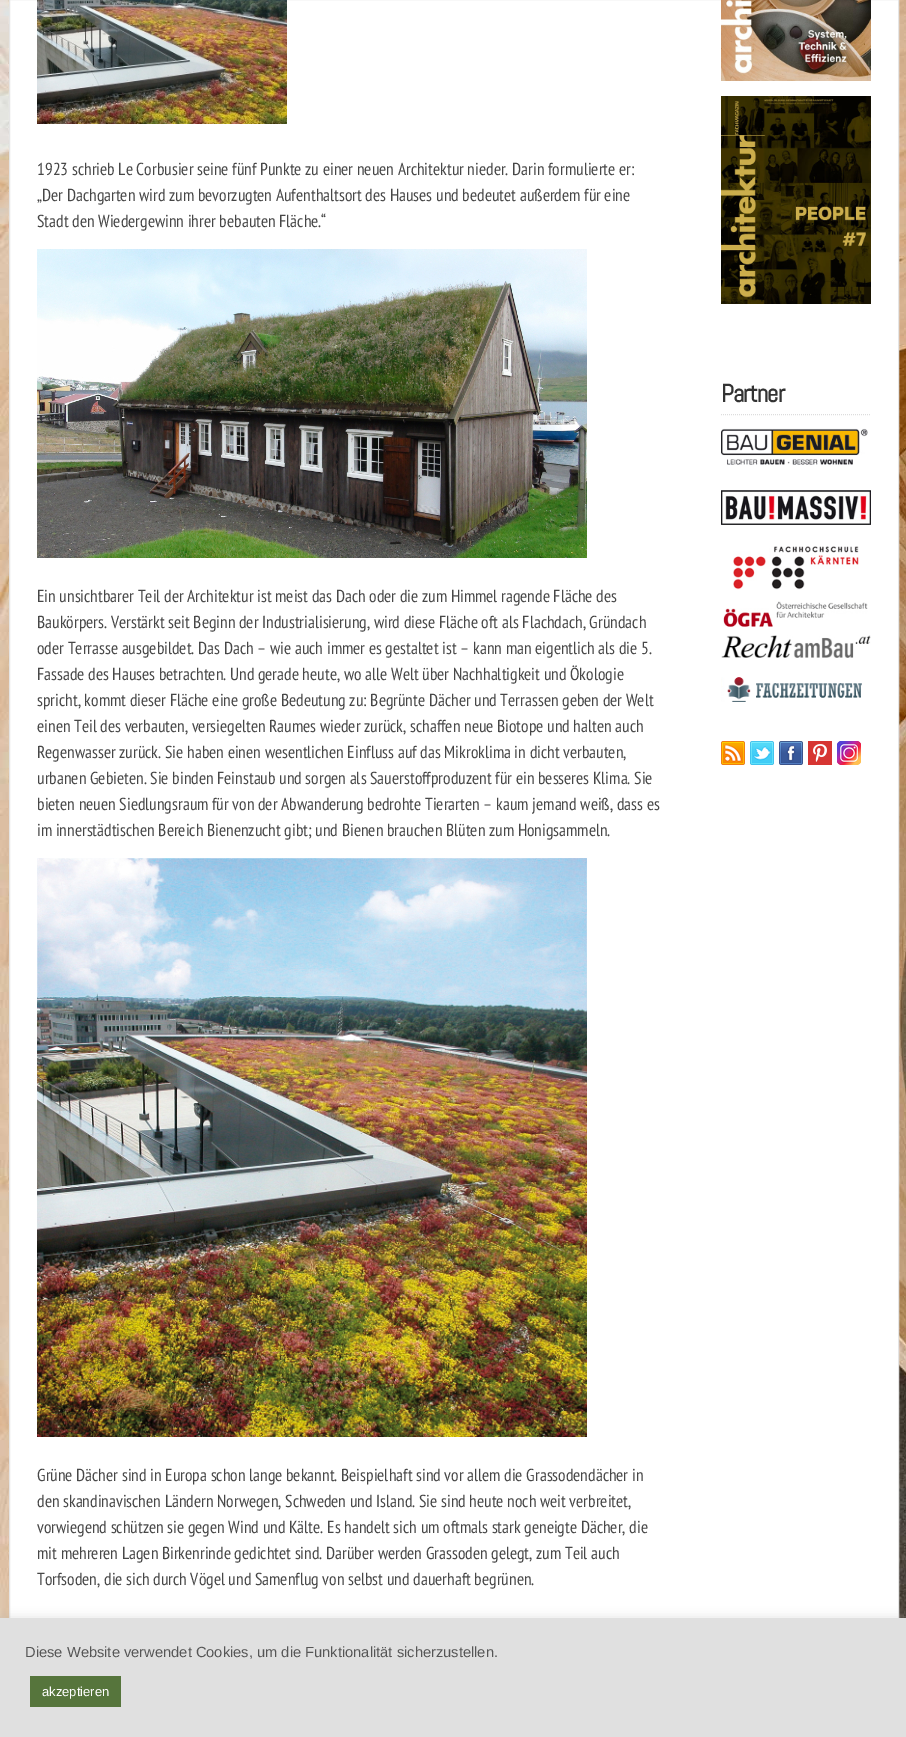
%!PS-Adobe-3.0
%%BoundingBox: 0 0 906 1737
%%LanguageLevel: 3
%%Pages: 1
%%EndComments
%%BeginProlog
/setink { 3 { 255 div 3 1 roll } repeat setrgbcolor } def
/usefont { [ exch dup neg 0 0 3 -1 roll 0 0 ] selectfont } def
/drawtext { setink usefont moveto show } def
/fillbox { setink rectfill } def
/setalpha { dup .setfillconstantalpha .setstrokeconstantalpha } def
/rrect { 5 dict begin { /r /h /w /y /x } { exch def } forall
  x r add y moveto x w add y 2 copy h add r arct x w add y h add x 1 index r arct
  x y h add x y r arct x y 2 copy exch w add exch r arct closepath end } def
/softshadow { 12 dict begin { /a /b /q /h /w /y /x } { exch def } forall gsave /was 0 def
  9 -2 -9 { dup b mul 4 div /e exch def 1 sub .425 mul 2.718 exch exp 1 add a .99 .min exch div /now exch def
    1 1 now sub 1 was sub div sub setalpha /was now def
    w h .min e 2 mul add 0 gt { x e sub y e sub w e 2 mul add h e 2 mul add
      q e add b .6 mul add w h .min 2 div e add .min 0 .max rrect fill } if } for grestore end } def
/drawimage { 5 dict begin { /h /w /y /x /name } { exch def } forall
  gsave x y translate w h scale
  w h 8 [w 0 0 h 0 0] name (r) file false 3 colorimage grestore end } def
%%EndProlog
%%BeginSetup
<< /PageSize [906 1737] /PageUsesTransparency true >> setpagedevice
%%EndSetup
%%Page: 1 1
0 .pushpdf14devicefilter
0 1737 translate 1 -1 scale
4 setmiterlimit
0 0 906 1737 255 255 255 fillbox
(assets/img1.rgb) 0 0 906 1618 drawimage
10 0 888 1618 255 255 255 fillbox
229 229 229 setink
9.5 -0.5 889 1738 rectstroke
(assets/img2.rgb) 37 0 250 124 drawimage
(1923 schrieb Le Corbusier seine fünf Punkte zu einer neuen Architektur nieder. Darin formulierte er:) 37 175 /PTSansNarrow-Regular 17.35 71 71 71 drawtext
(„Der Dachgarten wird zum bevorzugten Aufenthaltsort des Hauses und bedeutet außerdem für eine) 37 201 /PTSansNarrow-Regular 17.35 71 71 71 drawtext
(Stadt den Wiedergewinn ihrer bebauten Fläche.“) 37 227 /PTSansNarrow-Regular 17.35 71 71 71 drawtext
(assets/img3.rgb) 37 249 550 309 drawimage
(Ein unsichtbarer Teil der Architektur ist meist das Dach oder die zum Himmel ragende Fläche des) 37 602 /PTSansNarrow-Regular 17.35 71 71 71 drawtext
(Baukörpers. Verstärkt seit Beginn der Industrialisierung, wird diese Fläche oft als Flachdach, Gründach) 37 628 /PTSansNarrow-Regular 17.35 71 71 71 drawtext
(oder Terrasse ausgebildet. Das Dach – wie auch immer es gestaltet ist – kann man eigentlich als die 5.) 37 654 /PTSansNarrow-Regular 17.35 71 71 71 drawtext
(Fassade des Hauses betrachten. Und gerade heute, wo alle Welt über Nachhaltigkeit und Ökologie) 37 680 /PTSansNarrow-Regular 17.35 71 71 71 drawtext
(spricht, kommt dieser Fläche eine große Bedeutung zu: Begrünte Dächer und Terrassen geben der Welt) 37 706 /PTSansNarrow-Regular 17.35 71 71 71 drawtext
(einen Teil des verbauten, versiegelten Raumes wieder zurück, schaffen neue Biotope und halten auch) 37 732 /PTSansNarrow-Regular 17.35 71 71 71 drawtext
(Regenwasser zurück. Sie haben einen wesentlichen Einfluss auf das Mikroklima in dicht verbauten,) 37 758 /PTSansNarrow-Regular 17.35 71 71 71 drawtext
(urbanen Gebieten. Sie binden Feinstaub und sorgen als Sauerstoffproduzent für ein besseres Klima. Sie) 37 784 /PTSansNarrow-Regular 17.35 71 71 71 drawtext
(bieten neuen Siedlungsraum für von der Abwanderung bedrohte Tierarten – kaum jemand weiß, dass es) 37 810 /PTSansNarrow-Regular 17.35 71 71 71 drawtext
(im innerstädtischen Bereich Bienenzucht gibt; und Bienen brauchen Blüten zum Honigsammeln.) 37 836 /PTSansNarrow-Regular 17.35 71 71 71 drawtext
(assets/img4.rgb) 37 858 550 579 drawimage
(Grüne Dächer sind in Europa schon lange bekannt. Beispielhaft sind vor allem die Grassodendächer in) 37 1481 /PTSansNarrow-Regular 17.35 71 71 71 drawtext
(den skandinavischen Ländern Norwegen, Schweden und Island. Sie sind heute noch weit verbreitet,) 37 1507 /PTSansNarrow-Regular 17.35 71 71 71 drawtext
(vorwiegend schützen sie gegen Wind und Kälte. Es handelt sich um oftmals stark geneigte Dächer, die) 37 1533 /PTSansNarrow-Regular 17.35 71 71 71 drawtext
(mit mehreren Lagen Birkenrinde gedichtet sind. Darüber werden Grassoden gelegt, zum Teil auch) 37 1559 /PTSansNarrow-Regular 17.35 71 71 71 drawtext
(Torfsoden, die sich durch Vögel und Samenflug von selbst und dauerhaft begrünen.) 37 1585 /PTSansNarrow-Regular 17.35 71 71 71 drawtext
(assets/img5.rgb) 721 0 150 81 drawimage
(assets/img6.rgb) 721 96 150 208 drawimage
221 221 221 setink
[1 1] 0 setdash
721 414.5 moveto 871 414.5 lineto stroke
/Abel-Bold 25 usefont
51 51 51 setink
721 402 moveto -1 0 (Partner) ashow
(assets/img7.rgb) 721 428 147 37 drawimage
(assets/img8.rgb) 721 490 150 35 drawimage
(assets/img9.rgb) 733 546 126 44 drawimage
(assets/img10.rgb) 723 601 145 26 drawimage
(assets/img11.rgb) 721 635 150 23 drawimage
(assets/img12.rgb) 721 677 141 25 drawimage
(assets/img13.rgb) 721 741 24 24 drawimage
(assets/img14.rgb) 750 741 24 24 drawimage
(assets/img15.rgb) 779 741 24 24 drawimage
(assets/img16.rgb) 808 741 24 24 drawimage
(assets/img17.rgb) 837 741 24 24 drawimage
172 171 171 setink
0 1617 906 119 0 5 0.3 softshadow
0 1618 906 119 224 224 224 fillbox
(Diese Website verwendet Cookies, um die Funktionalität sicherzustellen.) 25 1657 /LiberationSans-Regular 14.7 86 86 86 drawtext
30 1676 91 31 86 117 60 fillbox
(akzeptieren) 42 1696 /LiberationSans-Regular 13 255 255 255 drawtext
.poppdf14devicefilter showpage
%%EOF
